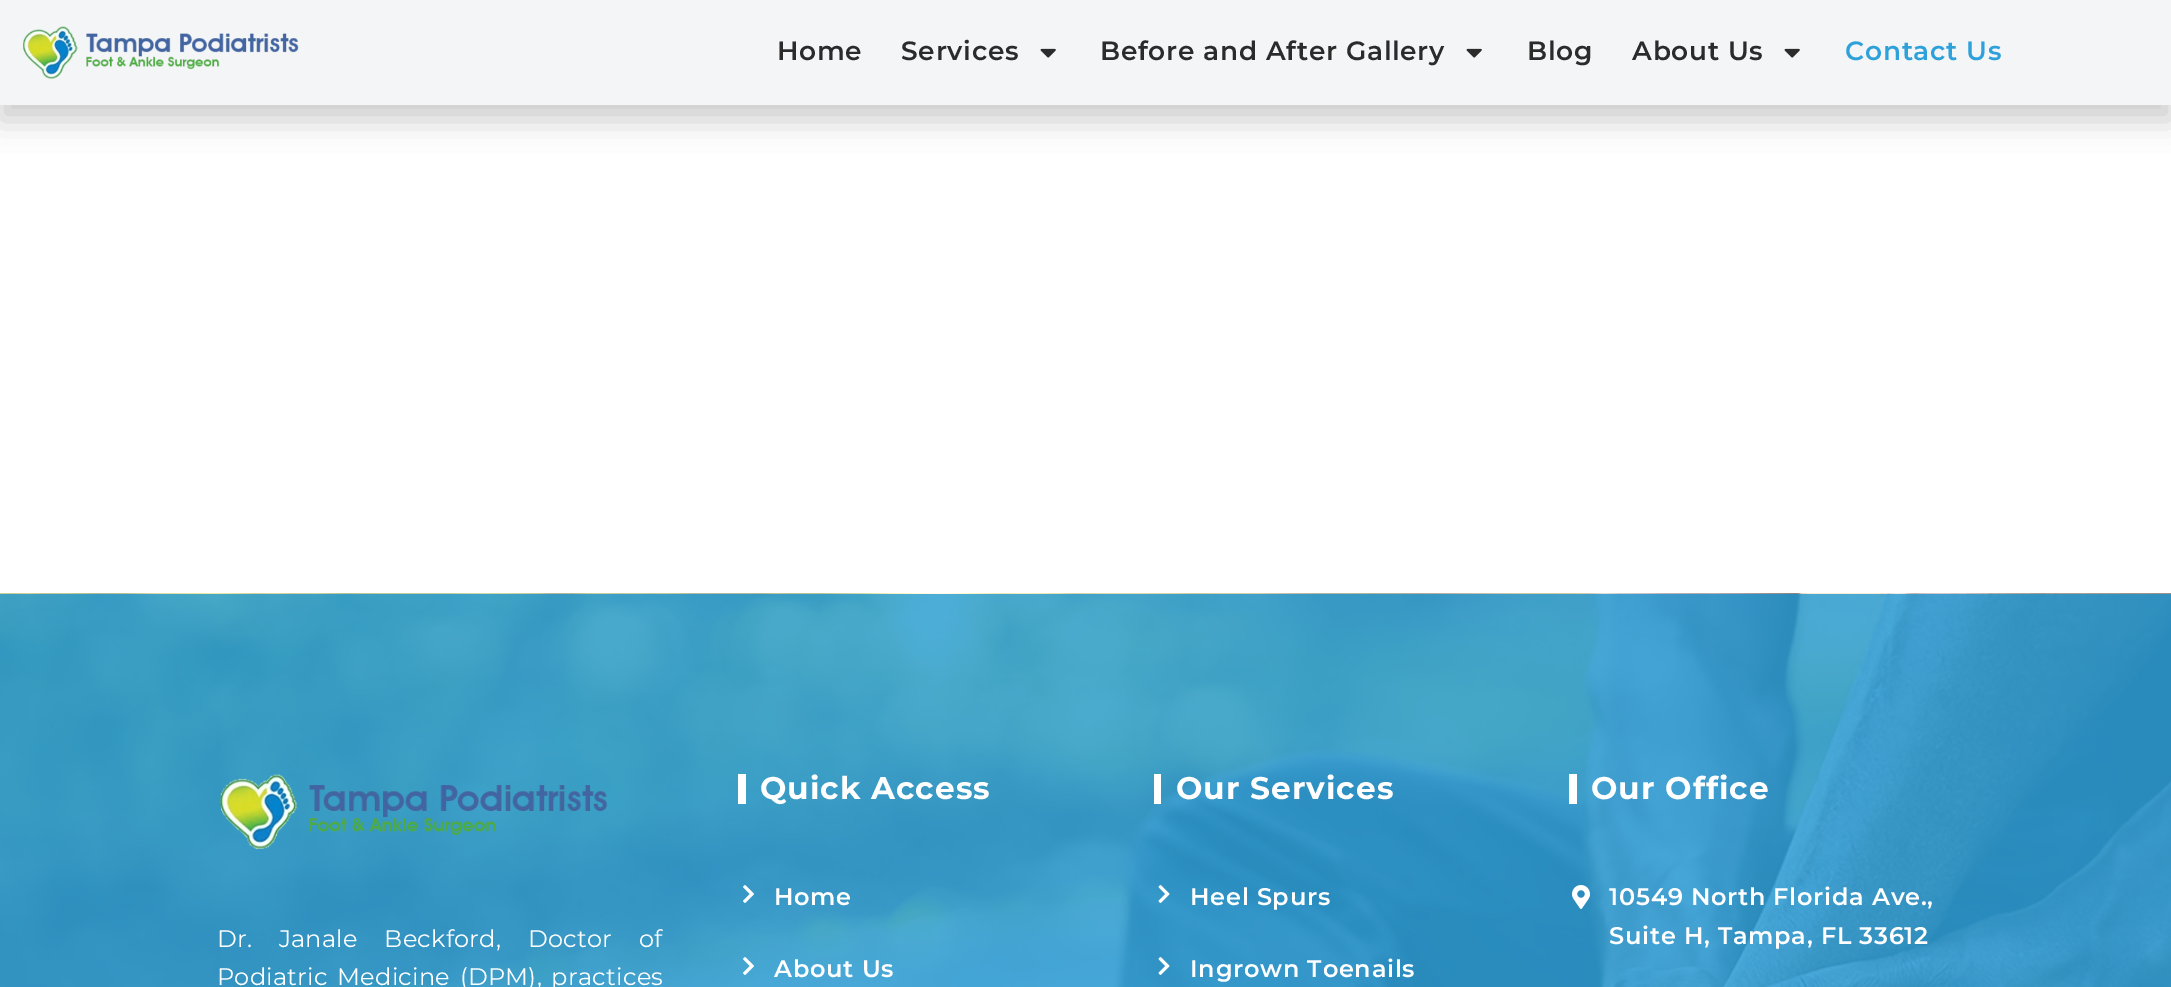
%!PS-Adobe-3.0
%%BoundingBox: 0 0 2171 987
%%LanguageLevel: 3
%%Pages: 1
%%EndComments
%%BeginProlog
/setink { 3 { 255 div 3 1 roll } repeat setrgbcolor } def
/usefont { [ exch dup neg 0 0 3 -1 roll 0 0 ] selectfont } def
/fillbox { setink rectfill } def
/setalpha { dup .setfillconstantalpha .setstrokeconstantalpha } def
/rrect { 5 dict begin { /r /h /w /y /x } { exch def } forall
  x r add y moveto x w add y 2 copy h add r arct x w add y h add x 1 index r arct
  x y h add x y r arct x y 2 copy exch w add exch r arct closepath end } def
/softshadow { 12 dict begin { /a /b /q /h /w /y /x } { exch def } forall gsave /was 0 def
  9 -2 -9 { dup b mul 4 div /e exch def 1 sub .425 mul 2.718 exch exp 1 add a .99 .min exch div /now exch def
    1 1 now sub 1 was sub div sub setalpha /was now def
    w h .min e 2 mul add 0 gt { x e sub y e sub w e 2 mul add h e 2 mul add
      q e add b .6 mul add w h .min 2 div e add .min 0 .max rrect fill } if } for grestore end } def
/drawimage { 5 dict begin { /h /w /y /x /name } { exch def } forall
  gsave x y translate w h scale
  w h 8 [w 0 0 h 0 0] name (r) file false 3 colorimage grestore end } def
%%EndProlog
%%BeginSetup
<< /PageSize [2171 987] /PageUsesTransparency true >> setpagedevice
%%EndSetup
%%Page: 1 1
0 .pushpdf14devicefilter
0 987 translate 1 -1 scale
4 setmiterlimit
0 0 2171 987 255 255 255 fillbox
0 0 0 setink
0 15 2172 105 0 15 0.2 softshadow
0 0 2171 105 243 245 247 fillbox
(assets/img1.rgb) 23 26 276 53 drawimage
/Montserrat-SemiBold 26.4 usefont
43 43 43 setink
777 60 moveto 0.75 0 (Home) ashow
901 60 moveto 0.75 0 (Services) ashow
(assets/img2.rgb) 1040 48 16 10 drawimage
1100 60 moveto 0.75 0 (Before and After Gallery) ashow
(assets/img2.rgb) 1466 48 16 10 drawimage
1527 60 moveto 0.75 0 (Blog) ashow
1632 60 moveto 0.75 0 (About Us) ashow
(assets/img2.rgb) 1784 48 16 10 drawimage
47 161 218 setink
1845 60 moveto 0.75 0 (Contact Us) ashow
(assets/img3.rgb) 0 593 2171 394 drawimage
738 774 8 30 255 255 255 fillbox
/Montserrat-Bold 31.25 usefont
760 799 moveto 1 0 (Quick Access) ashow
(assets/img4.rgb) 743 885 11 18 drawimage
/Montserrat-SemiBold 24 usefont
774 905 moveto 0.75 0 (Home) ashow
(assets/img5.rgb) 743 957 11 18 drawimage
774 977 moveto 0.75 0 (About Us) ashow
1154 774 7 30 255 255 255 fillbox
/Montserrat-Bold 31.25 usefont
1176 799 moveto 1 0 (Our Services) ashow
(assets/img6.rgb) 1158 885 12 18 drawimage
/Montserrat-SemiBold 24 usefont
1190 905 moveto 0.75 0 (Heel Spurs) ashow
(assets/img7.rgb) 1158 957 12 18 drawimage
1190 977 moveto 0.75 0 (Ingrown Toenails) ashow
1569 774 8 30 255 255 255 fillbox
/Montserrat-Bold 31.25 usefont
1591 799 moveto 1 0 (Our Office) ashow
(assets/img8.rgb) 1572 885 18 24 drawimage
/Montserrat-SemiBold 24 usefont
1609 905 moveto 0.75 0 (10549 North Florida Ave.,) ashow
1609 944 moveto 0.75 0 (Suite H, Tampa, FL 33612) ashow
(assets/img9.rgb) 220 773 388 77 drawimage
/Montserrat-Regular 24 usefont
217 947 moveto 20 0 32 0.25 0 (Dr. Janale Beckford, Doctor of) awidthshow
217 985 moveto 3 0 32 0.25 0 (Podiatric Medicine \(DPM\), practices) awidthshow
.poppdf14devicefilter showpage
%%EOF
